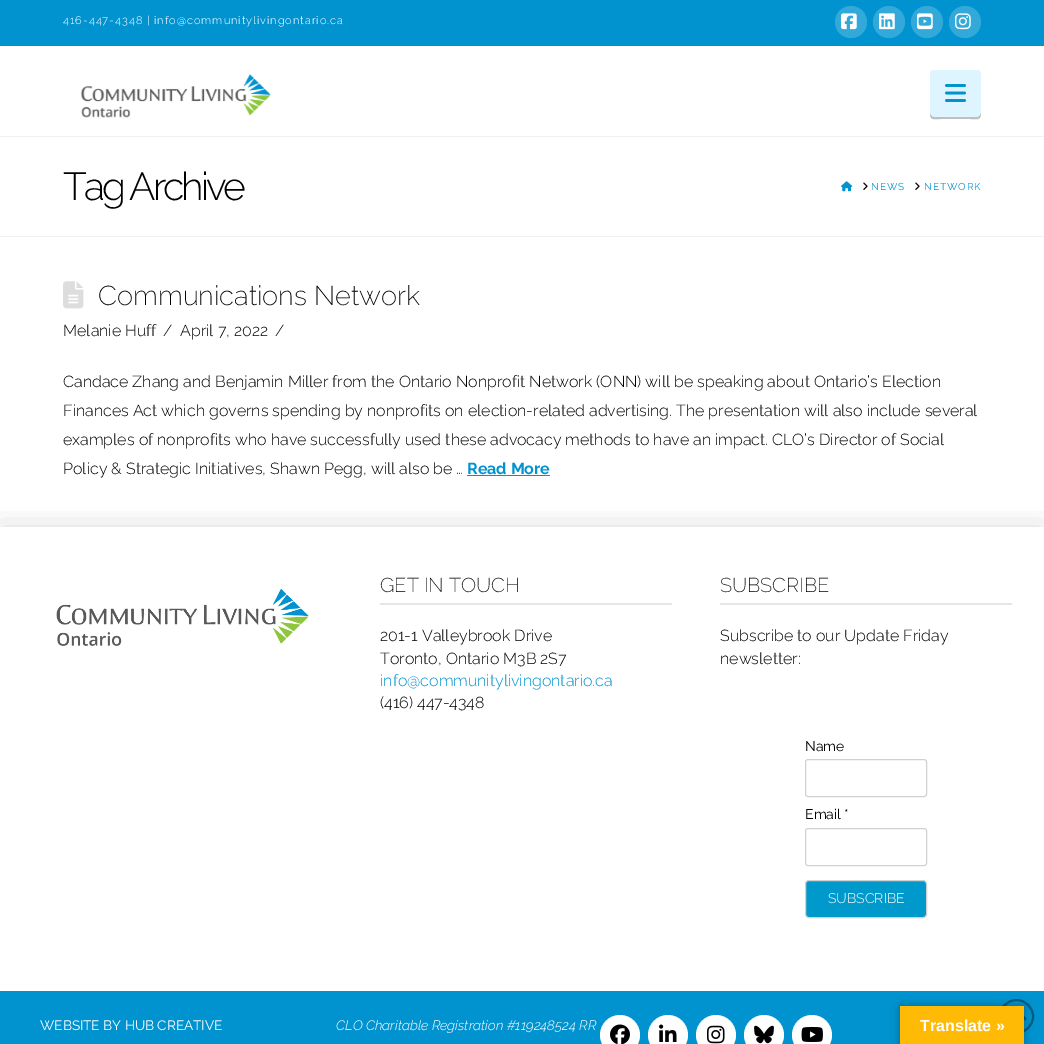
%!PS-Adobe-3.0
%%BoundingBox: 0 0 1044 1044
%%LanguageLevel: 3
%%Pages: 1
%%EndComments
%%BeginProlog
/setink { 3 { 255 div 3 1 roll } repeat setrgbcolor } def
/usefont { [ exch dup neg 0 0 3 -1 roll 0 0 ] selectfont } def
/drawtext { setink usefont moveto show } def
/fillbox { setink rectfill } def
/setalpha { dup .setfillconstantalpha .setstrokeconstantalpha } def
/disc { newpath 0 360 arc closepath } def
/rrect { 5 dict begin { /r /h /w /y /x } { exch def } forall
  x r add y moveto x w add y 2 copy h add r arct x w add y h add x 1 index r arct
  x y h add x y r arct x y 2 copy exch w add exch r arct closepath end } def
/softshadow { 12 dict begin { /a /b /q /h /w /y /x } { exch def } forall gsave /was 0 def
  9 -2 -9 { dup b mul 4 div /e exch def 1 sub .425 mul 2.718 exch exp 1 add a .99 .min exch div /now exch def
    1 1 now sub 1 was sub div sub setalpha /was now def
    w h .min e 2 mul add 0 gt { x e sub y e sub w e 2 mul add h e 2 mul add
      q e add b .6 mul add w h .min 2 div e add .min 0 .max rrect fill } if } for grestore end } def
/drawimage { 5 dict begin { /h /w /y /x /name } { exch def } forall
  gsave x y translate w h scale
  w h 8 [w 0 0 h 0 0] name (r) file false 3 colorimage grestore end } def
%%EndProlog
%%BeginSetup
<< /PageSize [1044 1044] /PageUsesTransparency true >> setpagedevice
%%EndSetup
%%Page: 1 1
0 .pushpdf14devicefilter
0 1044 translate 1 -1 scale
4 setmiterlimit
0 0 1044 1044 255 255 255 fillbox
0 0 1044 46 0 147 208 fillbox
/Raleway-Light 11 usefont
255 255 255 setink
63 24 moveto 1 0 (416-447-4348 | info@communitylivingontario.ca) ashow
51 169 217 setink
851 22 16 disc fill
(assets/img1.rgb) 841 13 16 17 drawimage
889 22 16 disc fill
(assets/img2.rgb) 879 13 16 17 drawimage
927 22 16 disc fill
(assets/img3.rgb) 917 13 16 17 drawimage
965 22 16 disc fill
(assets/img4.rgb) 955 13 16 17 drawimage
(assets/img5.rgb) 81 74 190 44 drawimage
191 191 191 setink
930 113 moveto 930 121 934 119 941 119 curveto 970 119 lineto 977 119 981 121 981 113 curveto 981 115 979 117 977 117 curveto 934 117 lineto 932 117 930 115 930 113 curveto closepath fill
0.25 setalpha
122 211 255 setink
930 70 51 47 4 rrect fill
1 setalpha
(assets/img6.rgb) 945 84 21 18 drawimage
0 136 1044 1 242 242 242 fillbox
0 236 1044 1 242 242 242 fillbox
/Raleway-Light 39 usefont
0 0 0 setink
63 200 moveto -3 0 (Tag Archive) ashow
(assets/img7.rgb) 841 181 12 11 drawimage
(assets/img8.rgb) 863 182 5 8 drawimage
/Raleway-Regular 10 usefont
0 147 208 setink
871 190 moveto 1 0 (NEWS) ashow
(assets/img8.rgb) 915 182 5 8 drawimage
924 190 moveto 1 0 (NETWORK) ashow
(assets/img9.rgb) 63 281 21 28 drawimage
(Communications Network) 98 305 /Raleway-ExtraLight 27.25 0 0 0 drawtext
(Melanie Huff) 63 336 /Raleway-Light 16 0 0 0 drawtext
(/) 163 336 /Raleway-Light 16 0 0 0 drawtext
(April 7, 2022) 180 336 /Raleway-Light 16 0 0 0 drawtext
(/) 275 336 /Raleway-Light 16 0 0 0 drawtext
(Candace Zhang and Benjamin Miller from the Ontario Nonprofit Network \(ONN\) will be speaking about Ontario’s Election) 63 387 /Raleway-Light 16 0 0 0 drawtext
(Finances Act which governs spending by nonprofits on election-related advertising. The presentation will also include several) 63 416 /Raleway-Light 16 0 0 0 drawtext
(examples of nonprofits who have successfully used these advocacy methods to have an impact. CLO’s Director of Social) 63 445 /Raleway-Light 16 0 0 0 drawtext
(Policy & Strategic Initiatives, Shawn Pegg, will also be …) 63 474 /Raleway-Light 16 0 0 0 drawtext
(Read More) 467 474 /Raleway-Bold 16 0 147 208 drawtext
467 475 83 1 0 147 208 fillbox
gsave
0 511 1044 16 rectclip
0 0 0 setink
0 529 1044 464 0 16 0.15 softshadow
grestore
(assets/img10.rgb) 56 589 253 57 drawimage
380 603 292 2 229 229 229 fillbox
(GET IN TOUCH) 380 592 /Raleway-ExtraLight 20 0 0 0 drawtext
(201-1 Valleybrook Drive) 380 641 /Raleway-Light 16 0 0 0 drawtext
(Toronto, Ontario M3B 2S7) 380 664 /Raleway-Light 16 0 0 0 drawtext
(info@communitylivingontario.ca) 380 686 /Raleway-Light 16 0 147 208 drawtext
(\(416\) 447-4348) 380 708 /Raleway-Light 16 0 0 0 drawtext
720 603 292 2 229 229 229 fillbox
(SUBSCRIBE) 720 592 /Raleway-ExtraLight 20 0 0 0 drawtext
(Subscribe to our Update Friday) 720 641 /Raleway-Light 16 0 0 0 drawtext
(newsletter:) 720 664 /Raleway-Light 16 0 0 0 drawtext
(Name) 805 751 /Raleway-Regular 14 0 0 0 drawtext
209 209 209 setink
805.5 759.5 121 37 2.5 rrect stroke
(Email *) 805 819 /Raleway-Regular 14 0 0 0 drawtext
209 209 209 setink
805.5 828.5 121 37 2.5 rrect stroke
0 153 204 setink
805.5 880.5 121 37 3.5 rrect gsave fill grestore
209 209 209 setink
stroke
(SUBSCRIBE) 828 903 /Raleway-Light 14 255 255 255 drawtext
0 991 1044 53 0 147 208 fillbox
(WEBSITE BY HUB CREATIVE) 40 1030 /Raleway-Regular 13.6 255 255 255 drawtext
(CLO Charitable Registration #119248524 RR) 336 1030 /Raleway-LightItalic 13.6 255 255 255 drawtext
620 1035 20 disc fill
(assets/img11.rgb) 610 1024 20 20 drawimage
668 1035 20 disc fill
(assets/img12.rgb) 659 1024 18 18 drawimage
716 1035 20 disc fill
(assets/img13.rgb) 707 1025 18 19 drawimage
764 1035 20 disc fill
(assets/img14.rgb) 754 1025 20 19 drawimage
812 1035 20 disc fill
(assets/img15.rgb) 801 1027 22 15 drawimage
0 92 130 setink
2 setlinewidth
1016.5 1016.5 16.5 disc stroke
(assets/img16.rgb) 1024 1016 3 5 drawimage
0 0 0 setink
900 1006 124 38 0 4.5 0.3 softshadow
900 1006 124 38 255 186 6 fillbox
(Translate ») 920 1031 /LiberationSans-Bold 16 255 255 255 drawtext
.poppdf14devicefilter showpage
%%EOF
